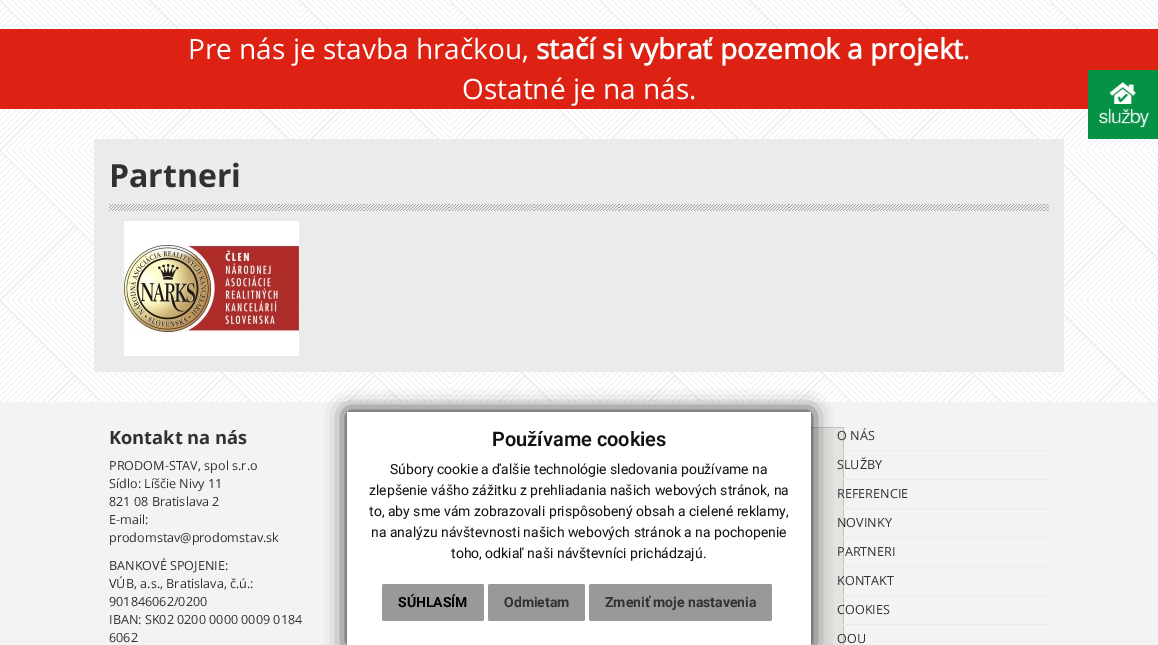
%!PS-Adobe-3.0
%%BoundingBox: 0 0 1158 645
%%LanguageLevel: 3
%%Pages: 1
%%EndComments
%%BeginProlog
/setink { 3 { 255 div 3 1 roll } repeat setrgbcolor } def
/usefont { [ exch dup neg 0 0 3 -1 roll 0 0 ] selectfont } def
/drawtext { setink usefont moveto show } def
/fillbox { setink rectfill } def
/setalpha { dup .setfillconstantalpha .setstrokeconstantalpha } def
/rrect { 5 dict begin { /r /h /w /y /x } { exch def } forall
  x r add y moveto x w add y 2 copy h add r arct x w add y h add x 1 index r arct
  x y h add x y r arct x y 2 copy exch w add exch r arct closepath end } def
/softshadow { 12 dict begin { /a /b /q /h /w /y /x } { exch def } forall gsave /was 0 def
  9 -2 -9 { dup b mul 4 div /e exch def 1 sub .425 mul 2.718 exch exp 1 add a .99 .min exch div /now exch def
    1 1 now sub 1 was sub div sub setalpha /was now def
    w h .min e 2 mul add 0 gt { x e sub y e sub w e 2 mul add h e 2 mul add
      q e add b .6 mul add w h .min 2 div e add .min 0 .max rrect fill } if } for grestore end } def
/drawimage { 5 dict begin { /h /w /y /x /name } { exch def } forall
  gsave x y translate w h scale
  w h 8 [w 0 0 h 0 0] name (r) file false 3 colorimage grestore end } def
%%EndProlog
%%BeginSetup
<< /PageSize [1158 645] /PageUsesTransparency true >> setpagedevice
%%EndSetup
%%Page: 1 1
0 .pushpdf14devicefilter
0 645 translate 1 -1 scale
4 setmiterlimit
0 0 1158 645 255 255 255 fillbox
(assets/img1.rgb) 0 0 1158 402 drawimage
0 29 1158 80 221 34 19 fillbox
(Pre nás je stavba hračkou,) 188 59 /OpenSans-Regular 28 255 255 255 drawtext
(stačí si vybrať pozemok a projekt) 536 59 /OpenSans-Bold 28 255 255 255 drawtext
(.) 963 59 /OpenSans-Regular 28 255 255 255 drawtext
(Ostatné je na nás.) 462 99 /OpenSans-Regular 28 255 255 255 drawtext
1088 70 70 69 7 145 68 fillbox
(assets/img2.rgb) 1099 82 50 46 drawimage
94 139 970 233 235 235 235 fillbox
(assets/img3.rgb) 109 204 940 7 drawimage
(Partneri) 109 187 /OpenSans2-Bold 32 49 49 49 drawtext
(assets/img4.rgb) 124 221 175 135 drawimage
0 402 1158 243 244 243 243 fillbox
(Kontakt na nás) 109 444 /OpenSans2-Bold 18.25 49 49 49 drawtext
(PRODOM-STAV, spol s.r.o) 109 470 /OpenSans-Regular 12.6 49 49 49 drawtext
(Sídlo: Líščie Nivy 11) 109 488 /OpenSans-Regular 12.6 49 49 49 drawtext
(821 08 Bratislava 2) 109 506 /OpenSans-Regular 12.6 49 49 49 drawtext
(E-mail:) 109 524 /OpenSans-Regular 12.6 49 49 49 drawtext
(prodomstav@prodomstav.sk) 109 542 /OpenSans-Regular 12.6 49 49 49 drawtext
(BANKOVÉ SPOJENIE:) 109 570 /OpenSans-Regular 12.6 49 49 49 drawtext
(VÚB, a.s., Bratislava, č.ú.:) 109 588 /OpenSans-Regular 12.6 49 49 49 drawtext
(901846062/0200) 109 606 /OpenSans-Regular 12.6 49 49 49 drawtext
(IBAN: SK02 0200 0000 0009 0184) 109 624 /OpenSans-Regular 12.6 49 49 49 drawtext
(6062) 109 642 /OpenSans-Regular 12.6 49 49 49 drawtext
(assets/img5.rgb) 811 427 33 218 drawimage
228 228 228 setink
[1 1] 0 setdash
837 450.5 moveto 1049 450.5 lineto stroke
(O NÁS) 837 440 /OpenSans-Regular 12.6 49 49 49 drawtext
228 228 228 setink
837 479.5 moveto 1049 479.5 lineto stroke
(SLUŽBY) 837 469 /OpenSans-Regular 12.6 49 49 49 drawtext
228 228 228 setink
837 508.5 moveto 1049 508.5 lineto stroke
(REFERENCIE) 837 498 /OpenSans-Regular 12.6 49 49 49 drawtext
228 228 228 setink
837 537.5 moveto 1049 537.5 lineto stroke
(NOVINKY) 837 527 /OpenSans-Regular 12.6 49 49 49 drawtext
228 228 228 setink
837 566.5 moveto 1049 566.5 lineto stroke
(PARTNERI) 837 556 /OpenSans-Regular 12.6 49 49 49 drawtext
228 228 228 setink
837 595.5 moveto 1049 595.5 lineto stroke
(KONTAKT) 837 585 /OpenSans-Regular 12.6 49 49 49 drawtext
228 228 228 setink
837 624.5 moveto 1049 624.5 lineto stroke
(COOKIES) 837 614 /OpenSans-Regular 12.6 49 49 49 drawtext
(OOU) 837 643 /OpenSans-Regular 12.6 49 49 49 drawtext
17 17 17 setink
347 412 464 233 0 10 1 softshadow
347 412 464 233 255 255 255 fillbox
(Používame cookies) 492 446 /Roboto-SemiBold 20 17 17 17 drawtext
(Súbory cookie a ďalšie technológie sledovania používame na) 390 474 /Roboto-Regular 14 17 17 17 drawtext
(zlepšenie vášho zážitku z prehliadania našich webových stránok, na) 369 495 /Roboto-Regular 14 17 17 17 drawtext
(to, aby sme vám zobrazovali prispôsobený obsah a cielené reklamy,) 369 516 /Roboto-Regular 14 17 17 17 drawtext
(na analýzu návštevnosti našich webových stránok a na pochopenie) 371 537 /Roboto-Regular 14 17 17 17 drawtext
(toho, odkiaľ naši návštevníci prichádzajú.) 451 558 /Roboto-Regular 14 17 17 17 drawtext
153 153 153 setink
382 584 102 37 2 rrect fill
(SÚHLASÍM) 398 607 /Roboto-Bold 14 0 0 0 drawtext
153 153 153 setink
488 584 97 37 2 rrect fill
(Odmietam) 504 607 /Roboto-Bold 14 49 49 49 drawtext
153 153 153 setink
589 584 183 37 2 rrect fill
(Zmeniť moje nastavenia) 605 607 /Roboto-Bold 14 49 49 49 drawtext
.poppdf14devicefilter showpage
%%EOF
